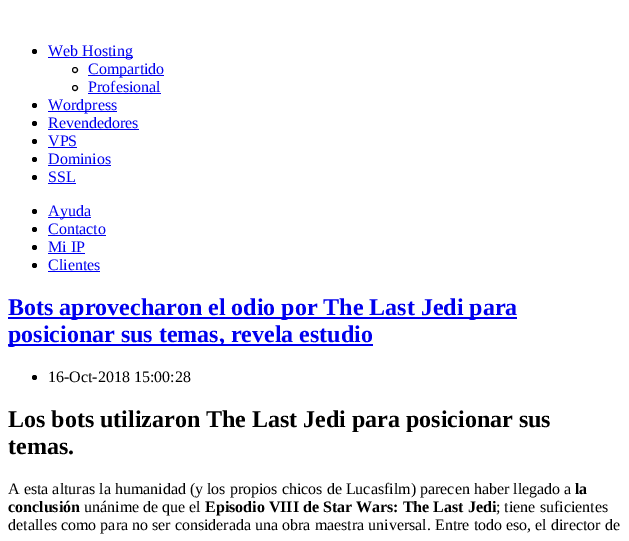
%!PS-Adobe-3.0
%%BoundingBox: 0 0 629 541
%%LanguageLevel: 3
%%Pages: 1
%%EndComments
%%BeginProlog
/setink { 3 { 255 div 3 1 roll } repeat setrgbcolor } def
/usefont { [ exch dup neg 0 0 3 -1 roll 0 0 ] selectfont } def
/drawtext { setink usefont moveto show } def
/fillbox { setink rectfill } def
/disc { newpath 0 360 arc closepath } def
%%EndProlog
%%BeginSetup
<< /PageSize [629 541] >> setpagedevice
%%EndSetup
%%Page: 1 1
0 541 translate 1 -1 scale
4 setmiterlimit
0 0 629 541 255 255 255 fillbox
0 0 0 setink
34.5 51.5 2.5 disc fill
48 57 85 1 0 0 238 fillbox
(Web Hosting) 48 56 /LiberationSerif-Regular 16 0 0 238 drawtext
0 0 0 setink
75 70 2.5 disc stroke
88 75 76 1 0 0 238 fillbox
(Compartido) 88 74 /LiberationSerif-Regular 16 0 0 238 drawtext
0 0 0 setink
75 88 2.5 disc stroke
(Profesional) 88 92 /LiberationSerif-Regular 16 0 0 238 drawtext
88 93 73 1 0 0 238 fillbox
0 0 0 setink
34.5 105.5 2.5 disc fill
48 111 69 1 0 0 238 fillbox
(Wordpress) 48 110 /LiberationSerif-Regular 16 0 0 238 drawtext
0 0 0 setink
34.5 123.5 2.5 disc fill
(Revendedores) 48 128 /LiberationSerif-Regular 16 0 0 238 drawtext
48 129 91 1 0 0 238 fillbox
0 0 0 setink
34.5 141.5 2.5 disc fill
(VPS) 48 146 /LiberationSerif-Regular 16 0 0 238 drawtext
48 147 29 1 0 0 238 fillbox
0 0 0 setink
34.5 159.5 2.5 disc fill
(Dominios) 48 164 /LiberationSerif-Regular 16 0 0 238 drawtext
48 165 63 1 0 0 238 fillbox
0 0 0 setink
34.5 177.5 2.5 disc fill
(SSL) 48 182 /LiberationSerif-Regular 16 0 0 238 drawtext
48 183 28 1 0 0 238 fillbox
0 0 0 setink
34.5 211.5 2.5 disc fill
48 217 43 1 0 0 238 fillbox
(Ayuda) 48 216 /LiberationSerif-Regular 16 0 0 238 drawtext
0 0 0 setink
34.5 229.5 2.5 disc fill
(Contacto) 48 234 /LiberationSerif-Regular 16 0 0 238 drawtext
48 235 58 1 0 0 238 fillbox
0 0 0 setink
34.5 247.5 2.5 disc fill
(Mi IP) 48 252 /LiberationSerif-Regular 16 0 0 238 drawtext
48 253 37 1 0 0 238 fillbox
0 0 0 setink
34.5 265.5 2.5 disc fill
(Clientes) 48 270 /LiberationSerif-Regular 16 0 0 238 drawtext
48 271 52 1 0 0 238 fillbox
8 317 509 2 0 0 238 fillbox
(Bots aprovecharon el odio por The Last Jedi para) 8 315 /LiberationSerif-Bold 24 0 0 238 drawtext
8 344 365 2 0 0 238 fillbox
(posicionar sus temas, revela estudio) 8 342 /LiberationSerif-Bold 24 0 0 238 drawtext
0 0 0 setink
34.5 377.5 2.5 disc fill
(16-Oct-2018 15:00:28) 48 382 /LiberationSerif-Regular 16 0 0 0 drawtext
(Los bots utilizaron The Last Jedi para posicionar sus) 8 427 /LiberationSerif-Bold 24 0 0 0 drawtext
(temas.) 8 454 /LiberationSerif-Bold 24 0 0 0 drawtext
(A esta alturas la humanidad \(y los propios chicos de Lucasfilm\) parecen haber llegado a) 8 494 /LiberationSerif-Regular 16 0 0 0 drawtext
(la) 575 494 /LiberationSerif-Bold 16 0 0 0 drawtext
(conclusión) 8 512 /LiberationSerif-Bold 16 0 0 0 drawtext
(unánime de que el) 84 512 /LiberationSerif-Regular 16 0 0 0 drawtext
(Episodio VIII de Star Wars: The Last Jedi) 205 512 /LiberationSerif-Bold 16 0 0 0 drawtext
(; tiene suficientes) 496 512 /LiberationSerif-Regular 16 0 0 0 drawtext
(detalles como para no ser considerada una obra maestra universal. Entre todo eso, el director de) 8 530 /LiberationSerif-Regular 16 0 0 0 drawtext
showpage
%%EOF
